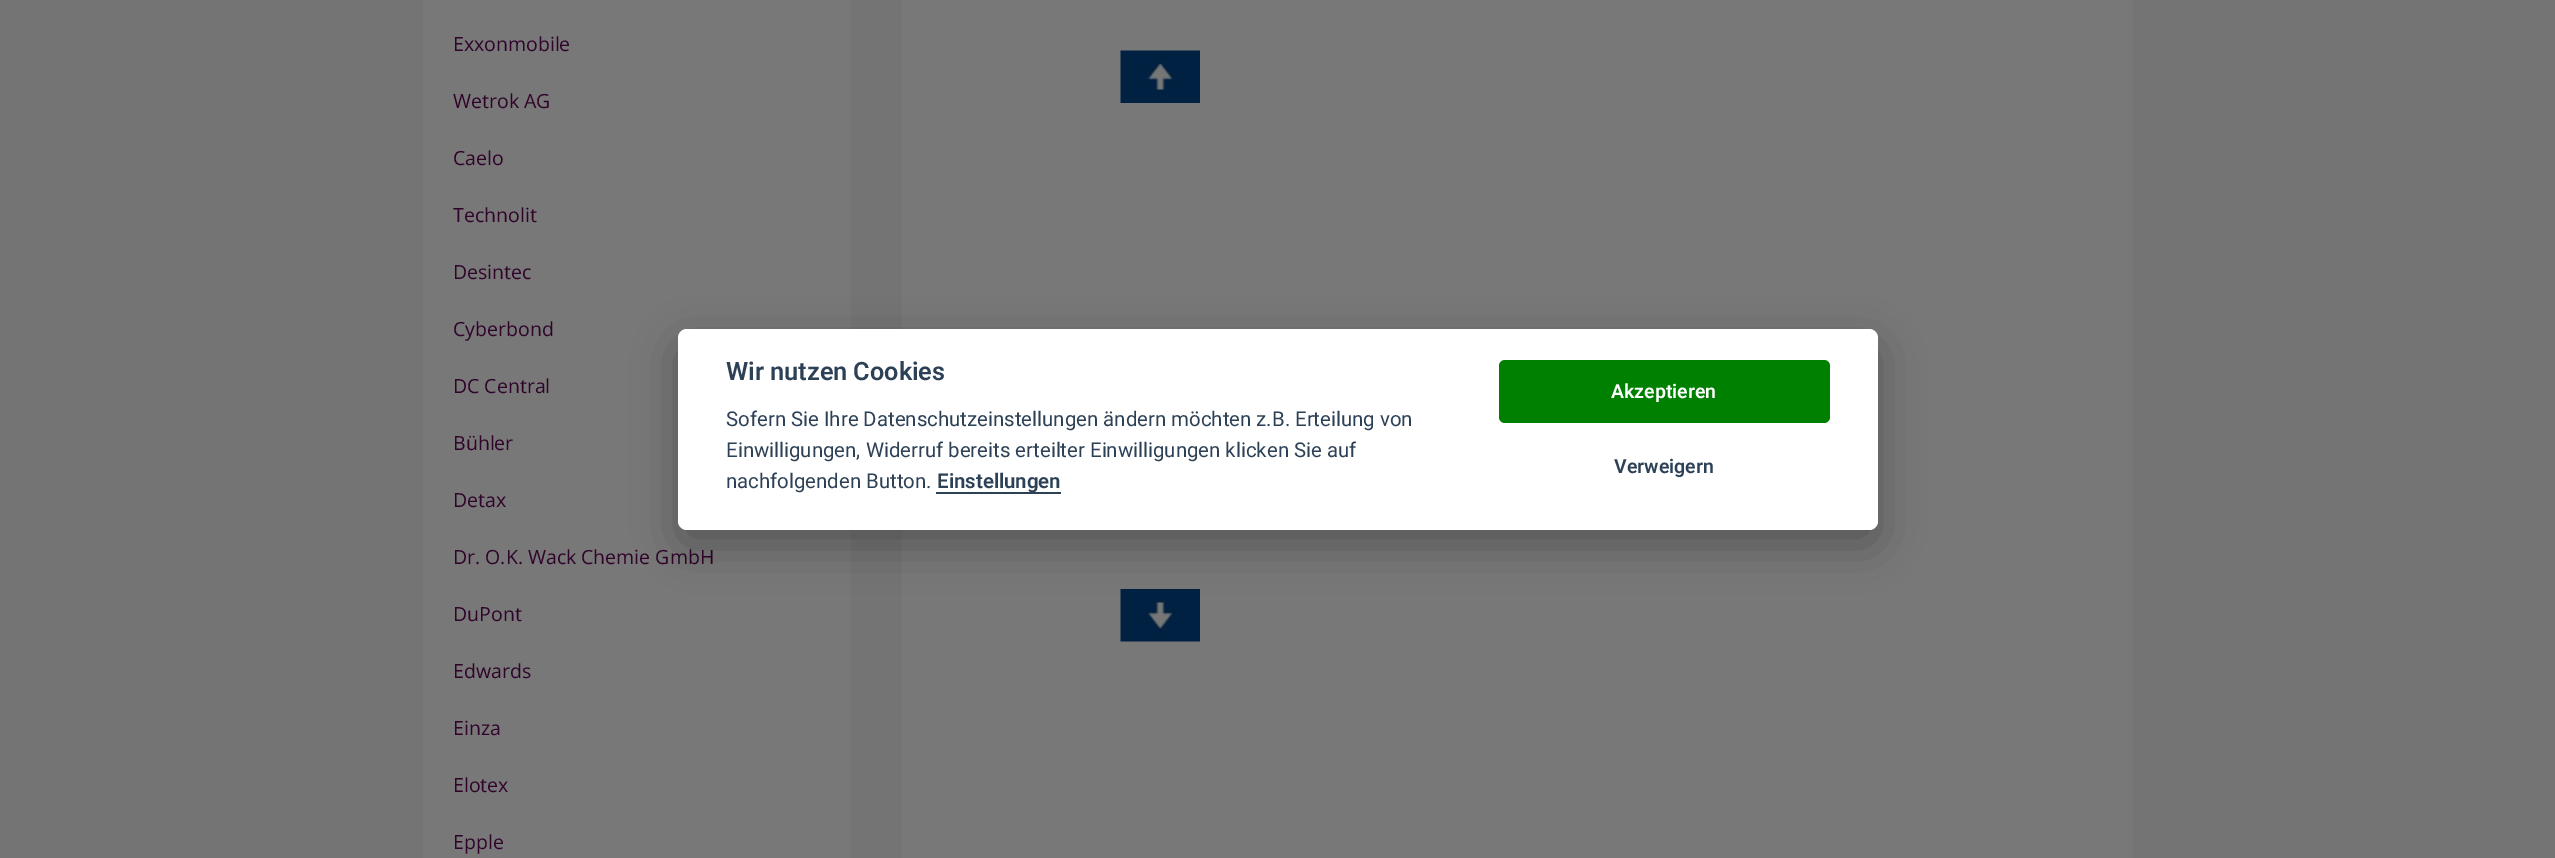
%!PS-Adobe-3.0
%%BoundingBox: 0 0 2555 858
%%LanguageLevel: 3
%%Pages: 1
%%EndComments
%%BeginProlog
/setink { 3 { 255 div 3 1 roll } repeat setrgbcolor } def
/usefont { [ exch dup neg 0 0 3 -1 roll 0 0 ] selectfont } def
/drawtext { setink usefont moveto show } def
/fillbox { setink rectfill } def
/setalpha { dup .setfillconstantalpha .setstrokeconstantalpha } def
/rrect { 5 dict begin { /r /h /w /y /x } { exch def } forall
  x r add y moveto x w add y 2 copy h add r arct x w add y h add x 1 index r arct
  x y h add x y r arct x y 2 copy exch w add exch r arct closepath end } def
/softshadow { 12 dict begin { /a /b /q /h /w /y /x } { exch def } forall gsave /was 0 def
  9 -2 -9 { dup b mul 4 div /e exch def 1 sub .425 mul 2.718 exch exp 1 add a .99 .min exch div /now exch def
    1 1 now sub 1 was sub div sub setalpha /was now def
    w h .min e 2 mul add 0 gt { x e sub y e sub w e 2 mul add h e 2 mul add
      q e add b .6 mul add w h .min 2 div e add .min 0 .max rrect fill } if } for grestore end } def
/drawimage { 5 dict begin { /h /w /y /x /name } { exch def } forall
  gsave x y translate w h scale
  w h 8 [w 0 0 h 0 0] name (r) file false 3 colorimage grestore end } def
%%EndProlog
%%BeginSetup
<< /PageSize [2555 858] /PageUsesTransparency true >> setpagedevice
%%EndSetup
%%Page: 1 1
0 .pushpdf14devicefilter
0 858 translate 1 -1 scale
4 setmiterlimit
0 0 2555 858 116 116 116 fillbox
423 0 428 858 120 120 120 fillbox
(Exxonmobile) 453 51 /OpenSans-Regular 19.5 48 3 42 drawtext
(Wetrok AG) 453 108 /OpenSans-Regular 19.5 48 3 42 drawtext
(Caelo) 453 165 /OpenSans-Regular 19.5 48 3 42 drawtext
(Technolit) 453 222 /OpenSans-Regular 19.5 48 3 42 drawtext
(Desintec) 453 279 /OpenSans-Regular 19.5 48 3 42 drawtext
(Cyberbond) 453 336 /OpenSans-Regular 19.5 48 3 42 drawtext
(DC Central) 453 393 /OpenSans-Regular 19.5 48 3 42 drawtext
(Bühler) 453 450 /OpenSans-Regular 19.5 48 3 42 drawtext
(Detax) 453 507 /OpenSans-Regular 19.5 48 3 42 drawtext
(Dr. O.K. Wack Chemie GmbH) 453 564 /OpenSans-Regular 19.5 48 3 42 drawtext
(DuPont) 453 621 /OpenSans-Regular 19.5 48 3 42 drawtext
(Edwards) 453 678 /OpenSans-Regular 19.5 48 3 42 drawtext
(Einza) 453 735 /OpenSans-Regular 19.5 48 3 42 drawtext
(Elotex) 453 792 /OpenSans-Regular 19.5 48 3 42 drawtext
(Epple) 453 849 /OpenSans-Regular 19.5 48 3 42 drawtext
902 0 1231 858 120 120 120 fillbox
(assets/img1.rgb) 1120 50 80 53 drawimage
(assets/img2.rgb) 1120 589 80 53 drawimage
2 2 3 setink
678 344 1200 201 9 22.5 0.28 softshadow
255 255 255 setink
678 329 1200 201 9 rrect fill
(Wir nutzen Cookies) 726 380 /Roboto-SemiBold 25.25 45 65 86 drawtext
(Sofern Sie Ihre Datenschutzeinstellungen ändern möchten z.B. Erteilung von) 726 426 /Roboto-Regular 20.4 45 65 86 drawtext
(Einwilligungen, Widerruf bereits erteilter Einwilligungen klicken Sie auf) 726 457 /Roboto-Regular 20.4 45 65 86 drawtext
(nachfolgenden Button.) 726 488 /Roboto-Regular 20.4 45 65 86 drawtext
936 492 125 2 45 65 86 fillbox
(Einstellungen) 937 488 /Roboto-SemiBold 20.4 45 65 86 drawtext
0 128 0 setink
1499 360 331 63 6 rrect fill
(Akzeptieren) 1611 398 /Roboto-SemiBold 19.5 255 255 255 drawtext
(Verweigern) 1614 473 /Roboto-SemiBold 19.5 45 65 86 drawtext
.poppdf14devicefilter showpage
%%EOF
